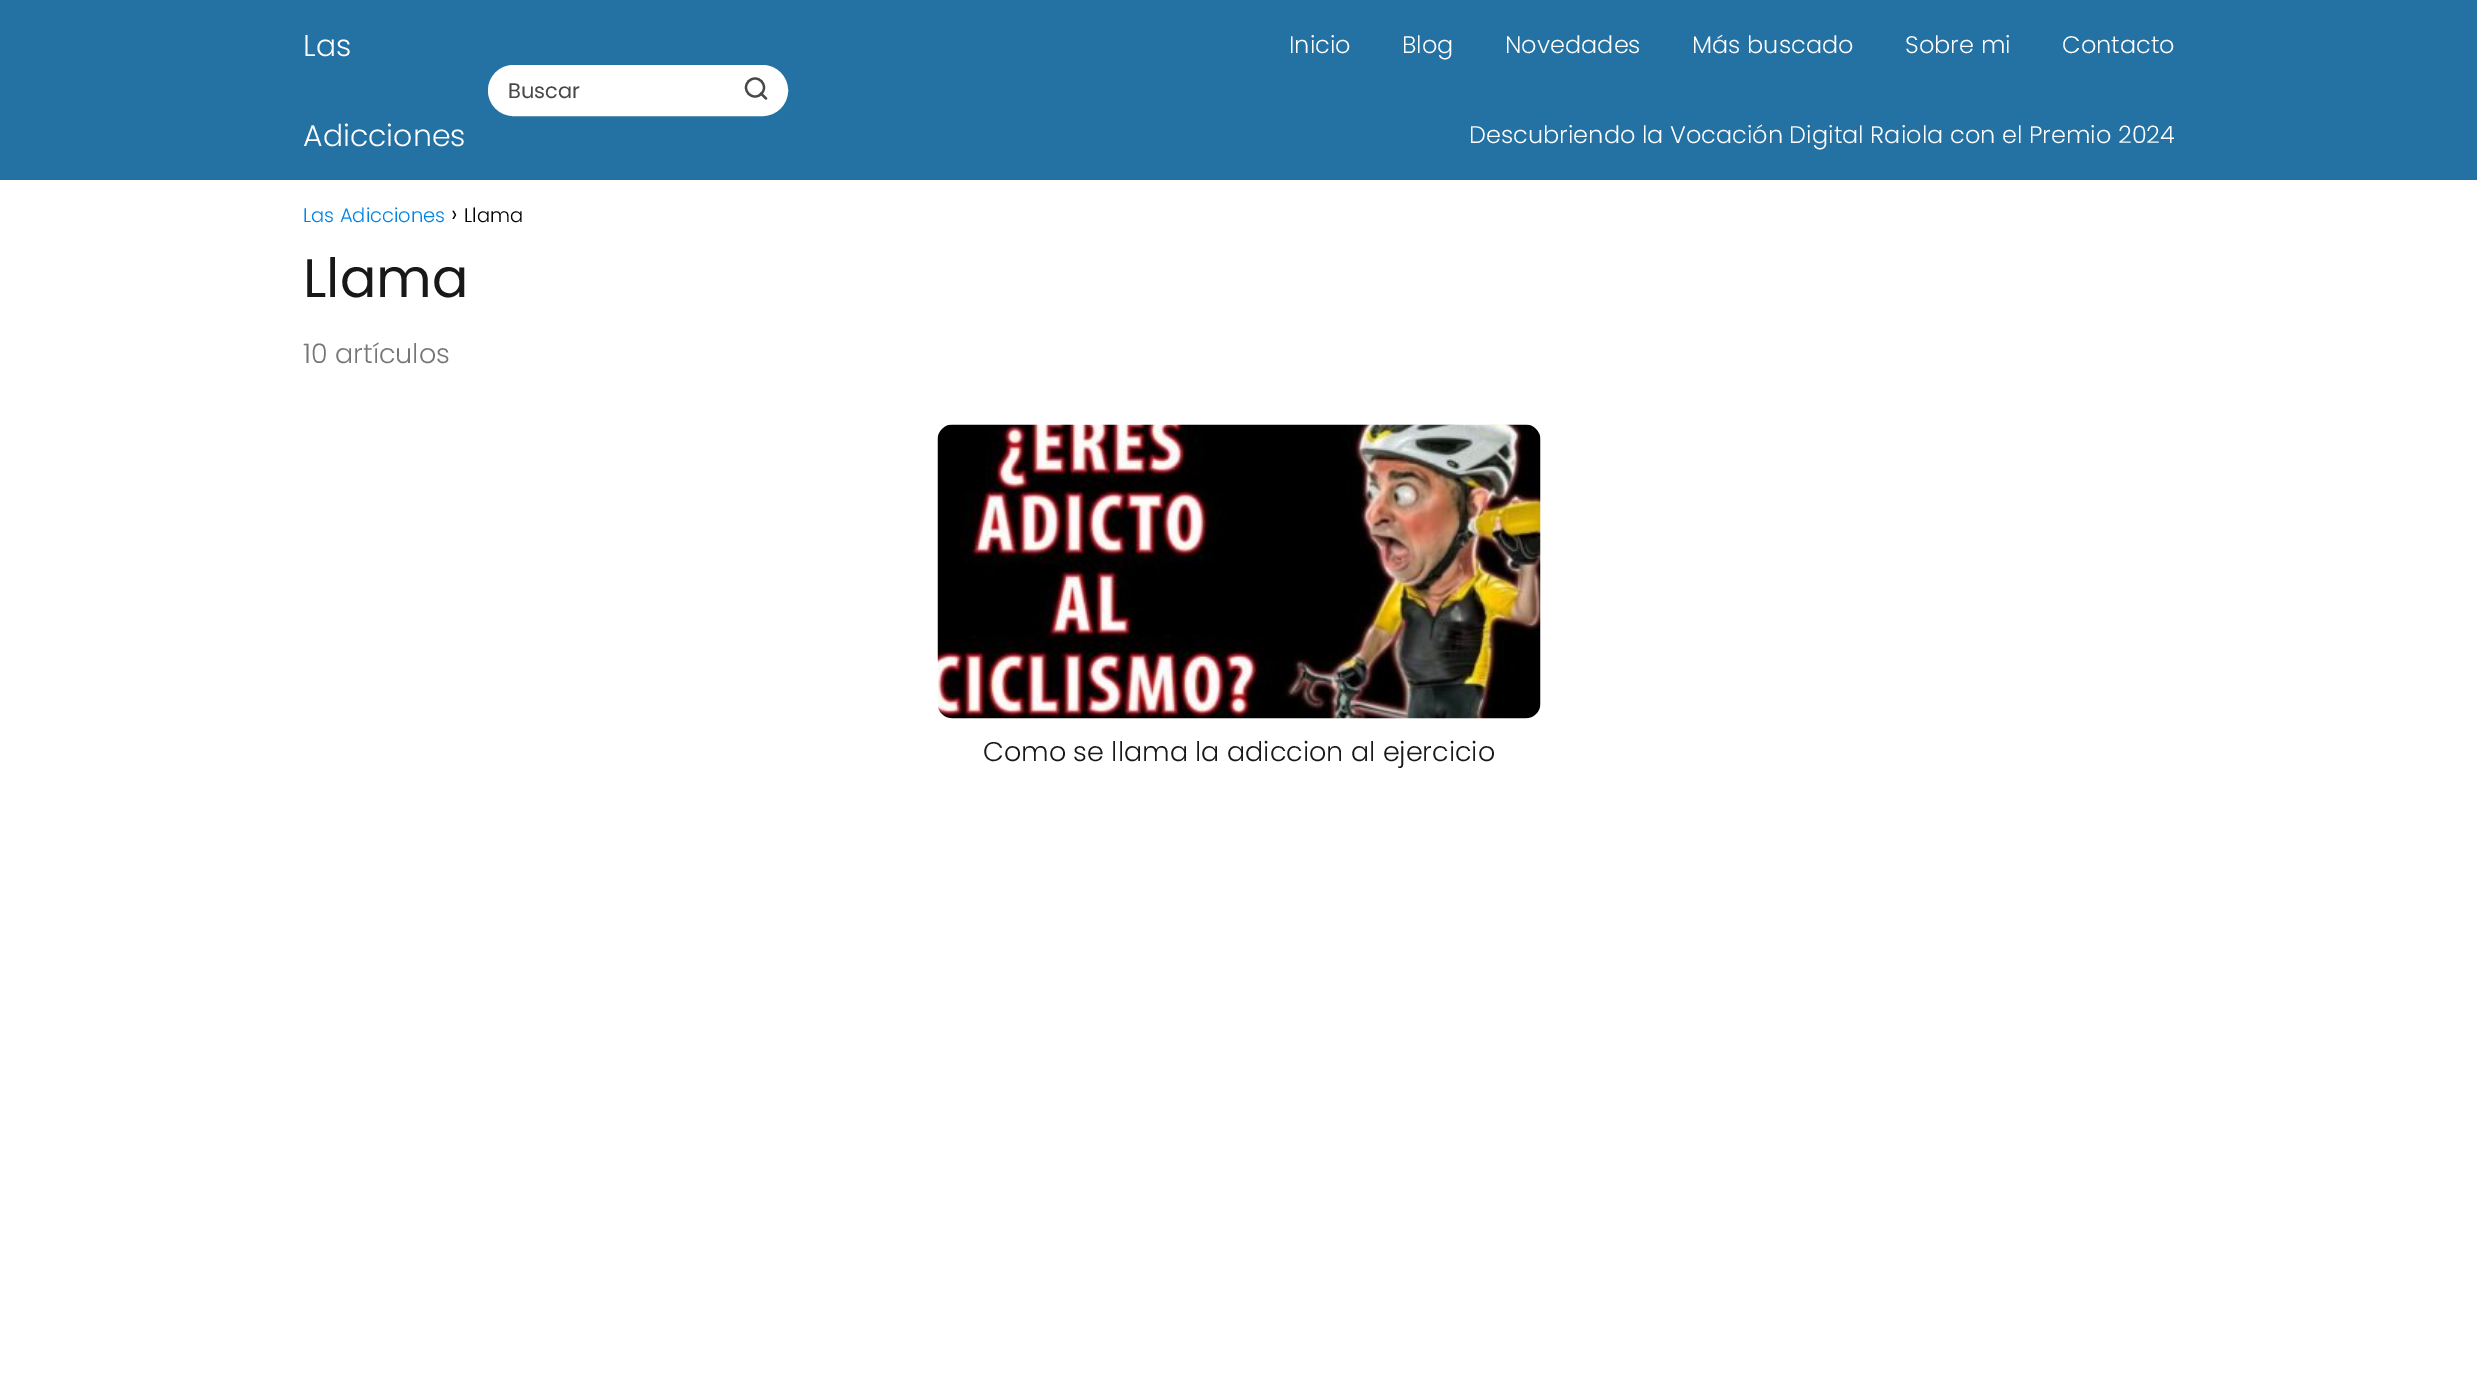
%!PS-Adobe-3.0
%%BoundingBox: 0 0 2477 1394
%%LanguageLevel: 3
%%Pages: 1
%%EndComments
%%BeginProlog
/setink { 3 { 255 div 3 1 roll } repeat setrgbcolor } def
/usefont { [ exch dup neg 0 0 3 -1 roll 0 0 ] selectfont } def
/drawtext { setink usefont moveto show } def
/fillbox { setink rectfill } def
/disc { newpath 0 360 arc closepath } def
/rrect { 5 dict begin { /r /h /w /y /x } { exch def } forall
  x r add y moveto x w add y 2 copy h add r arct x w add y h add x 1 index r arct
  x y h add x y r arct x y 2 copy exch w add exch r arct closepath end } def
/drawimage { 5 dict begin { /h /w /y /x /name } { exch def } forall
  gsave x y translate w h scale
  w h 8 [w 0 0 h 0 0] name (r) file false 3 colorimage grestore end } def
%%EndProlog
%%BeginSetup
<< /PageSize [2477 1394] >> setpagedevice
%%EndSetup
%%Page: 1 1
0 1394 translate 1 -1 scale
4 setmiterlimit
0 0 2477 1394 255 255 255 fillbox
0 0 2477 180 36 113 163 fillbox
(Las) 303 56 /Poppins-Light 30 255 255 255 drawtext
(Adicciones) 303 146 /Poppins-Light 30 255 255 255 drawtext
489 66 298 49 24.5 rrect gsave fill grestore
2 setlinewidth
stroke
(Buscar) 508 98 /Poppins-Regular 21 72 72 72 drawtext
2.2 setlinewidth
755 87.5 9 disc stroke
1 setlinecap
1 setlinejoin
766 98.5 moveto 761 93.5 lineto stroke
(Inicio) 1289 53 /Poppins-Light 24 255 255 255 drawtext
(Blog) 1402 53 /Poppins-Light 24 255 255 255 drawtext
(Novedades) 1505 53 /Poppins-Light 24 255 255 255 drawtext
(Más buscado) 1692 53 /Poppins-Light 24 255 255 255 drawtext
(Sobre mi) 1905 53 /Poppins-Light 24 255 255 255 drawtext
(Contacto) 2062 53 /Poppins-Light 24 255 255 255 drawtext
(Descubriendo la Vocación Digital Raiola con el Premio 2024) 1469 143 /Poppins-Light 24 255 255 255 drawtext
(Las Adicciones) 303 222 /Poppins-Light 19.5 1 131 228 drawtext
(›) 451 222 /Poppins-Light 24 0 0 0 drawtext
(Llama) 464 222 /Poppins-Light 19.5 0 0 0 drawtext
(Llama) 303 297 /Poppins-Regular 54 24 24 24 drawtext
(10 artículos) 303 363 /Poppins-Light 27 118 118 118 drawtext
(assets/img1.rgb) 937 424 604 295 drawimage
(Como se llama la adiccion al ejercicio) 983 761 /Poppins-Light 27 24 24 24 drawtext
showpage
%%EOF
